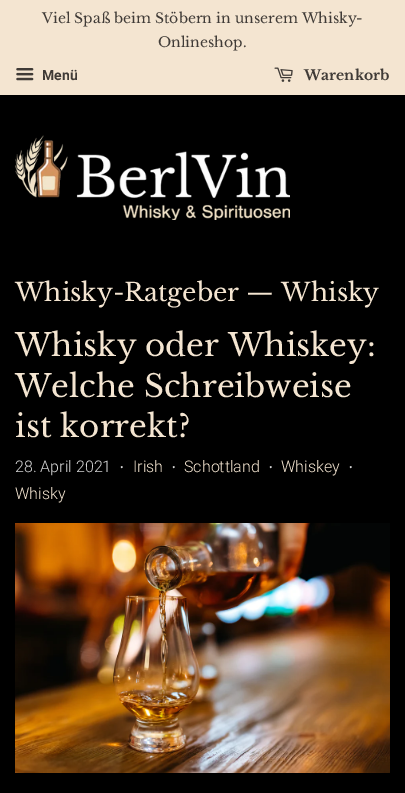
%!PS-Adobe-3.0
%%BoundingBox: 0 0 405 793
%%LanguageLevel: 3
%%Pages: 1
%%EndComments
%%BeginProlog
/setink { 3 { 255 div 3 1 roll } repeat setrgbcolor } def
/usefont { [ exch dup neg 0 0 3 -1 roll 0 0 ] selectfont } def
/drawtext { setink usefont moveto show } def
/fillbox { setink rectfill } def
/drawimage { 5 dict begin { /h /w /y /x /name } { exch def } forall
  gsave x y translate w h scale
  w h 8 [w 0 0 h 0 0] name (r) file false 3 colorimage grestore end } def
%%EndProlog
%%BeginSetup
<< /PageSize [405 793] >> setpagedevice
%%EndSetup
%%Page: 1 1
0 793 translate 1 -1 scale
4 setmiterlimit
0 0 405 793 0 0 0 fillbox
0 0 405 95 244 229 209 fillbox
(Viel Spaß beim Stöbern in unserem Whisky-) 42 23 /LibreBaskerville-Regular 14 64 59 55 drawtext
(Onlineshop.) 158 47 /LibreBaskerville-Regular 14 64 59 55 drawtext
(assets/img1.rgb) 16 68 18 13 drawimage
(Menü) 42 80 /Roboto-Bold 14 64 59 55 drawtext
(assets/img2.rgb) 274 67 19 15 drawimage
(Warenkorb) 304 80 /LibreBaskerville-Bold 14 64 59 55 drawtext
(assets/img3.rgb) 15 135 275 85 drawimage
(Whisky-Ratgeber — Whisky) 15 301 /LibreBaskerville-Regular 25 244 229 209 drawtext
(Whisky oder Whiskey:) 15 356 /LibreBaskerville-Regular 31 244 229 209 drawtext
(Welche Schreibweise) 15 397 /LibreBaskerville-Regular 31 244 229 209 drawtext
(ist korrekt?) 15 437 /LibreBaskerville-Regular 31 244 229 209 drawtext
(28. April 2021) 15 472 /Roboto-Light 16 214 214 214 drawtext
(•) 120 471 /Roboto-Light 11 214 214 214 drawtext
(Irish) 133 472 /Roboto-Light 16 244 229 209 drawtext
(•) 172 471 /Roboto-Light 11 214 214 214 drawtext
(Schottland) 184 472 /Roboto-Light 16 244 229 209 drawtext
(•) 269 471 /Roboto-Light 11 214 214 214 drawtext
(Whiskey) 281 472 /Roboto-Light 16 244 229 209 drawtext
(•) 349 471 /Roboto-Light 11 214 214 214 drawtext
(Whisky) 15 499 /Roboto-Light 16 244 229 209 drawtext
(assets/img4.rgb) 15 523 375 250 drawimage
showpage
%%EOF
